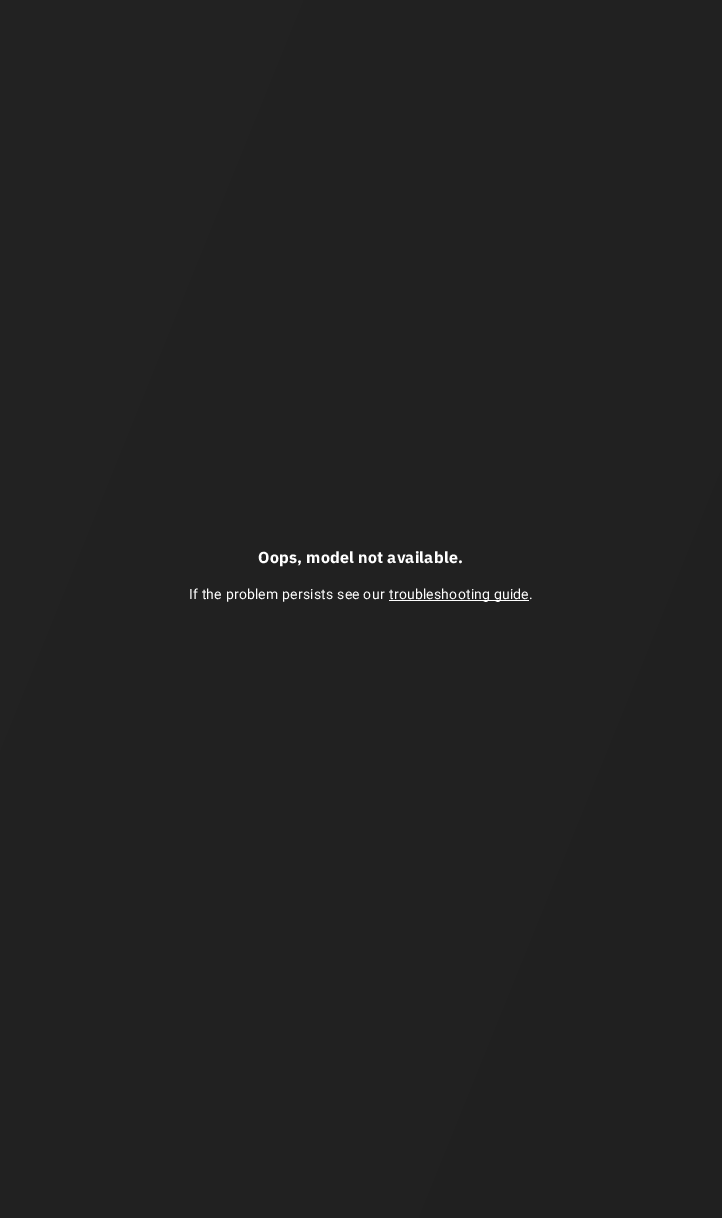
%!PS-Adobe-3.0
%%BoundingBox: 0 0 722 1218
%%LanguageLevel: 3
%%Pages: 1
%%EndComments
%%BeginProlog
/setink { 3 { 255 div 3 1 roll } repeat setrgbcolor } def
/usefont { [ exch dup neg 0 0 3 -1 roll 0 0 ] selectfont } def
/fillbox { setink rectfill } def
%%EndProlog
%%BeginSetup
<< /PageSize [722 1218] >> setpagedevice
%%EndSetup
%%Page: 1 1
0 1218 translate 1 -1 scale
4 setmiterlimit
0 0 722 1218 255 255 255 fillbox
gsave 0 0 moveto 722 0 lineto 722 1218 lineto 0 1218 lineto closepath clip newpath
<< /ShadingType 2 /ColorSpace /DeviceRGB /Coords [-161 398 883 820] /Extend [true true] /Function << /FunctionType 2 /Domain [0 1] /C0 [0.133 0.133 0.133] /C1 [0.125 0.125 0.125] /N 1 >> >> shfill grestore
/IBMPlexSans-Bold 16 usefont
258 563 moveto 0.2 0 (Oops, model not available.) ashow
/Roboto-Regular 14 usefont
189 599 moveto 0.2 0 (If the problem persists see our) ashow
389 600 140 1 255 255 255 fillbox
389 599 moveto 0.2 0 (troubleshooting guide.) ashow
showpage
%%EOF
